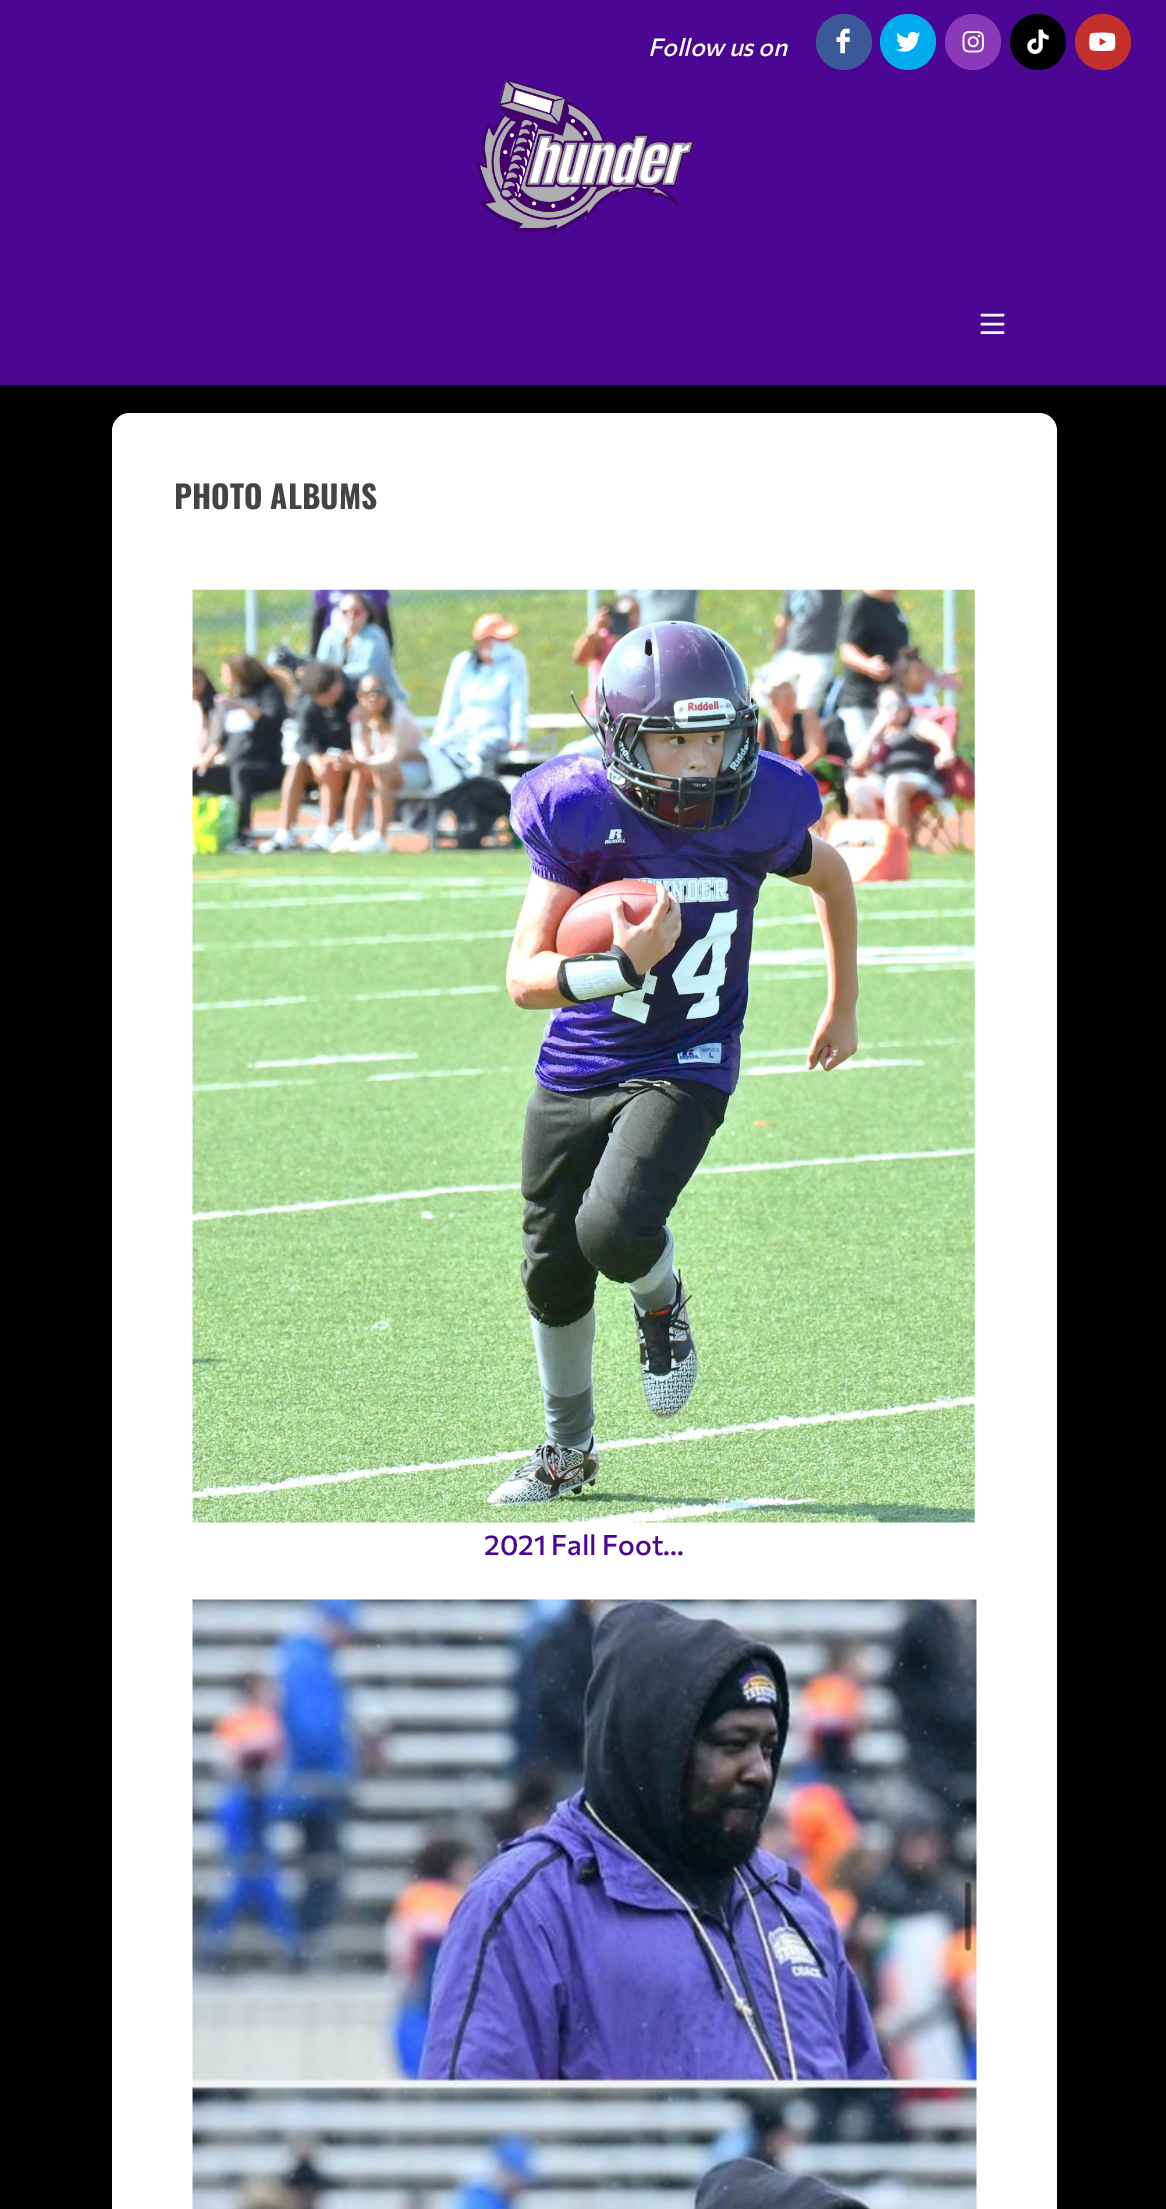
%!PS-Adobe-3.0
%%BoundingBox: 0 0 1166 2209
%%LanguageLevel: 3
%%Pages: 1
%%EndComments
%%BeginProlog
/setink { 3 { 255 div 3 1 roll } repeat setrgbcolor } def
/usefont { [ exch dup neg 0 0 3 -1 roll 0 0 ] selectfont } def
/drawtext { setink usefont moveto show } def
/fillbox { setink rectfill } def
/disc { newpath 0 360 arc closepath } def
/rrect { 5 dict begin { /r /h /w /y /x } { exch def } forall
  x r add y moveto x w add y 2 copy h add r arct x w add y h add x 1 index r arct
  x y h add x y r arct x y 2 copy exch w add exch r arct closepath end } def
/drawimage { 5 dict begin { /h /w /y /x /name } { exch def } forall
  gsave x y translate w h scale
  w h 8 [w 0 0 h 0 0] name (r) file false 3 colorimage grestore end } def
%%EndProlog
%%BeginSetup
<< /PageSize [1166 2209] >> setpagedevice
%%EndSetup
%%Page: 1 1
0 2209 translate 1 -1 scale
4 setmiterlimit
0 0 1166 2209 0 0 0 fillbox
0 0 1166 385 75 6 148 fillbox
(assets/img1.rgb) 476 79 218 156 drawimage
255 255 255 setink
2.6 setlinewidth
1 setlinecap
982 315 moveto 1003 315 lineto 982 324 moveto 1003 324 lineto 1003 332.5 moveto 982 332.5 lineto stroke
(Follow us on) 648 56 /Commissioner-MediumItalic 24.5 255 255 255 drawtext
59 89 152 setink
844 42 28 disc fill
(assets/img2.rgb) 836 28 14 26 drawimage
0 172 238 setink
908 42 28 disc fill
(assets/img3.rgb) 896 31 25 21 drawimage
138 58 185 setink
973 42 28 disc fill
(assets/img4.rgb) 962 31 22 22 drawimage
0 0 0 setink
1038 42 28 disc fill
(assets/img5.rgb) 1027 29 22 25 drawimage
196 48 43 setink
1103 42 28 disc fill
(assets/img6.rgb) 1089 32 27 19 drawimage
255 255 255 setink
112 413 945 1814 18 rrect fill
(PHOTO ALBUMS) 174 509 /Oswald-Bold 31.5 68 68 68 drawtext
(assets/img7.rgb) 192 589 783 934 drawimage
(2021 Fall Foot...) 484 1555 /Commissioner-Medium 28 75 6 148 drawtext
(assets/img8.rgb) 192 1599 785 610 drawimage
showpage
%%EOF
